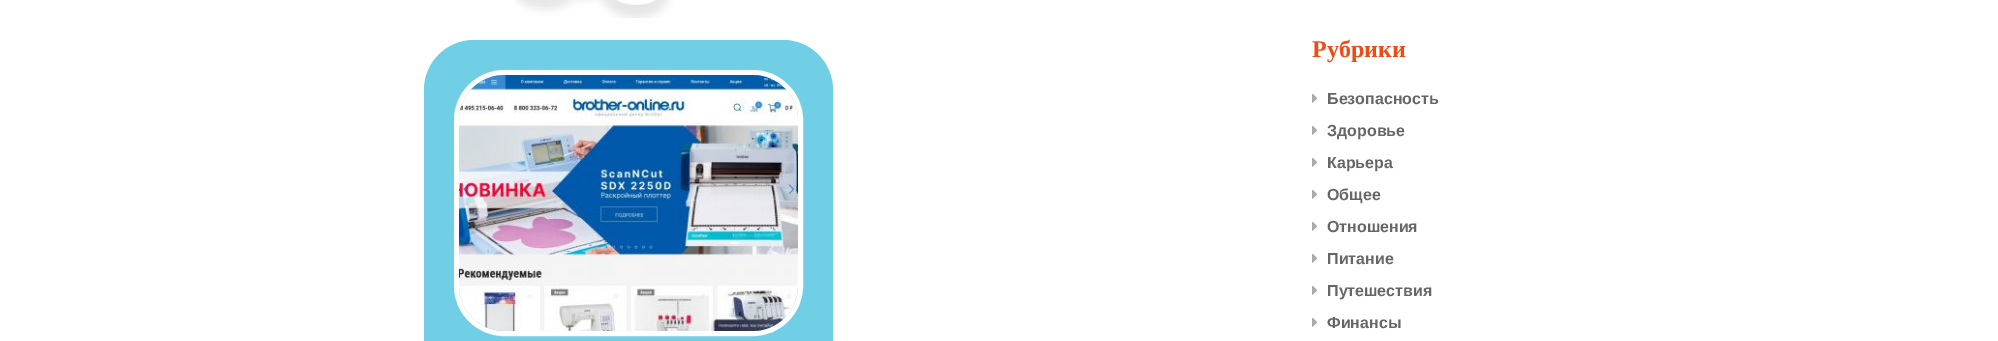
%!PS-Adobe-3.0
%%BoundingBox: 0 0 1998 341
%%LanguageLevel: 3
%%Pages: 1
%%EndComments
%%BeginProlog
/setink { 3 { 255 div 3 1 roll } repeat setrgbcolor } def
/usefont { [ exch dup neg 0 0 3 -1 roll 0 0 ] selectfont } def
/drawtext { setink usefont moveto show } def
/fillbox { setink rectfill } def
/rrect { 5 dict begin { /r /h /w /y /x } { exch def } forall
  x r add y moveto x w add y 2 copy h add r arct x w add y h add x 1 index r arct
  x y h add x y r arct x y 2 copy exch w add exch r arct closepath end } def
/drawimage { 5 dict begin { /h /w /y /x /name } { exch def } forall
  gsave x y translate w h scale
  w h 8 [w 0 0 h 0 0] name (r) file false 3 colorimage grestore end } def
%%EndProlog
%%BeginSetup
<< /PageSize [1998 341] >> setpagedevice
%%EndSetup
%%Page: 1 1
0 341 translate 1 -1 scale
4 setmiterlimit
0 0 1998 341 255 255 255 fillbox
(assets/img1.rgb) 514 0 159 18 drawimage
112 206 229 setink
424 40 409 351 50 rrect fill
255 255 255 setink
5 setlinewidth
456.5 72.5 344 261 47.5 rrect stroke
(assets/img2.rgb) 459 75 339 256 drawimage
(Рубрики) 1312 57 /LiberationSerif-Bold 24 238 76 22 drawtext
(assets/img3.rgb) 1312 93 5 10 drawimage
(Безопасность) 1327 104 /LiberationSans-Bold 16 102 102 102 drawtext
(assets/img3.rgb) 1312 125 5 10 drawimage
(Здоровье) 1327 136 /LiberationSans-Bold 16 102 102 102 drawtext
(assets/img3.rgb) 1312 157 5 10 drawimage
(Карьера) 1327 168 /LiberationSans-Bold 16 102 102 102 drawtext
(assets/img3.rgb) 1312 189 5 10 drawimage
(Общее) 1327 200 /LiberationSans-Bold 16 102 102 102 drawtext
(assets/img3.rgb) 1312 221 5 10 drawimage
(Отношения) 1327 232 /LiberationSans-Bold 16 102 102 102 drawtext
(assets/img3.rgb) 1312 253 5 10 drawimage
(Питание) 1327 264 /LiberationSans-Bold 16 102 102 102 drawtext
(assets/img3.rgb) 1312 285 5 10 drawimage
(Путешествия) 1327 296 /LiberationSans-Bold 16 102 102 102 drawtext
(assets/img3.rgb) 1312 317 5 10 drawimage
(Финансы) 1327 328 /LiberationSans-Bold 16 102 102 102 drawtext
showpage
%%EOF
